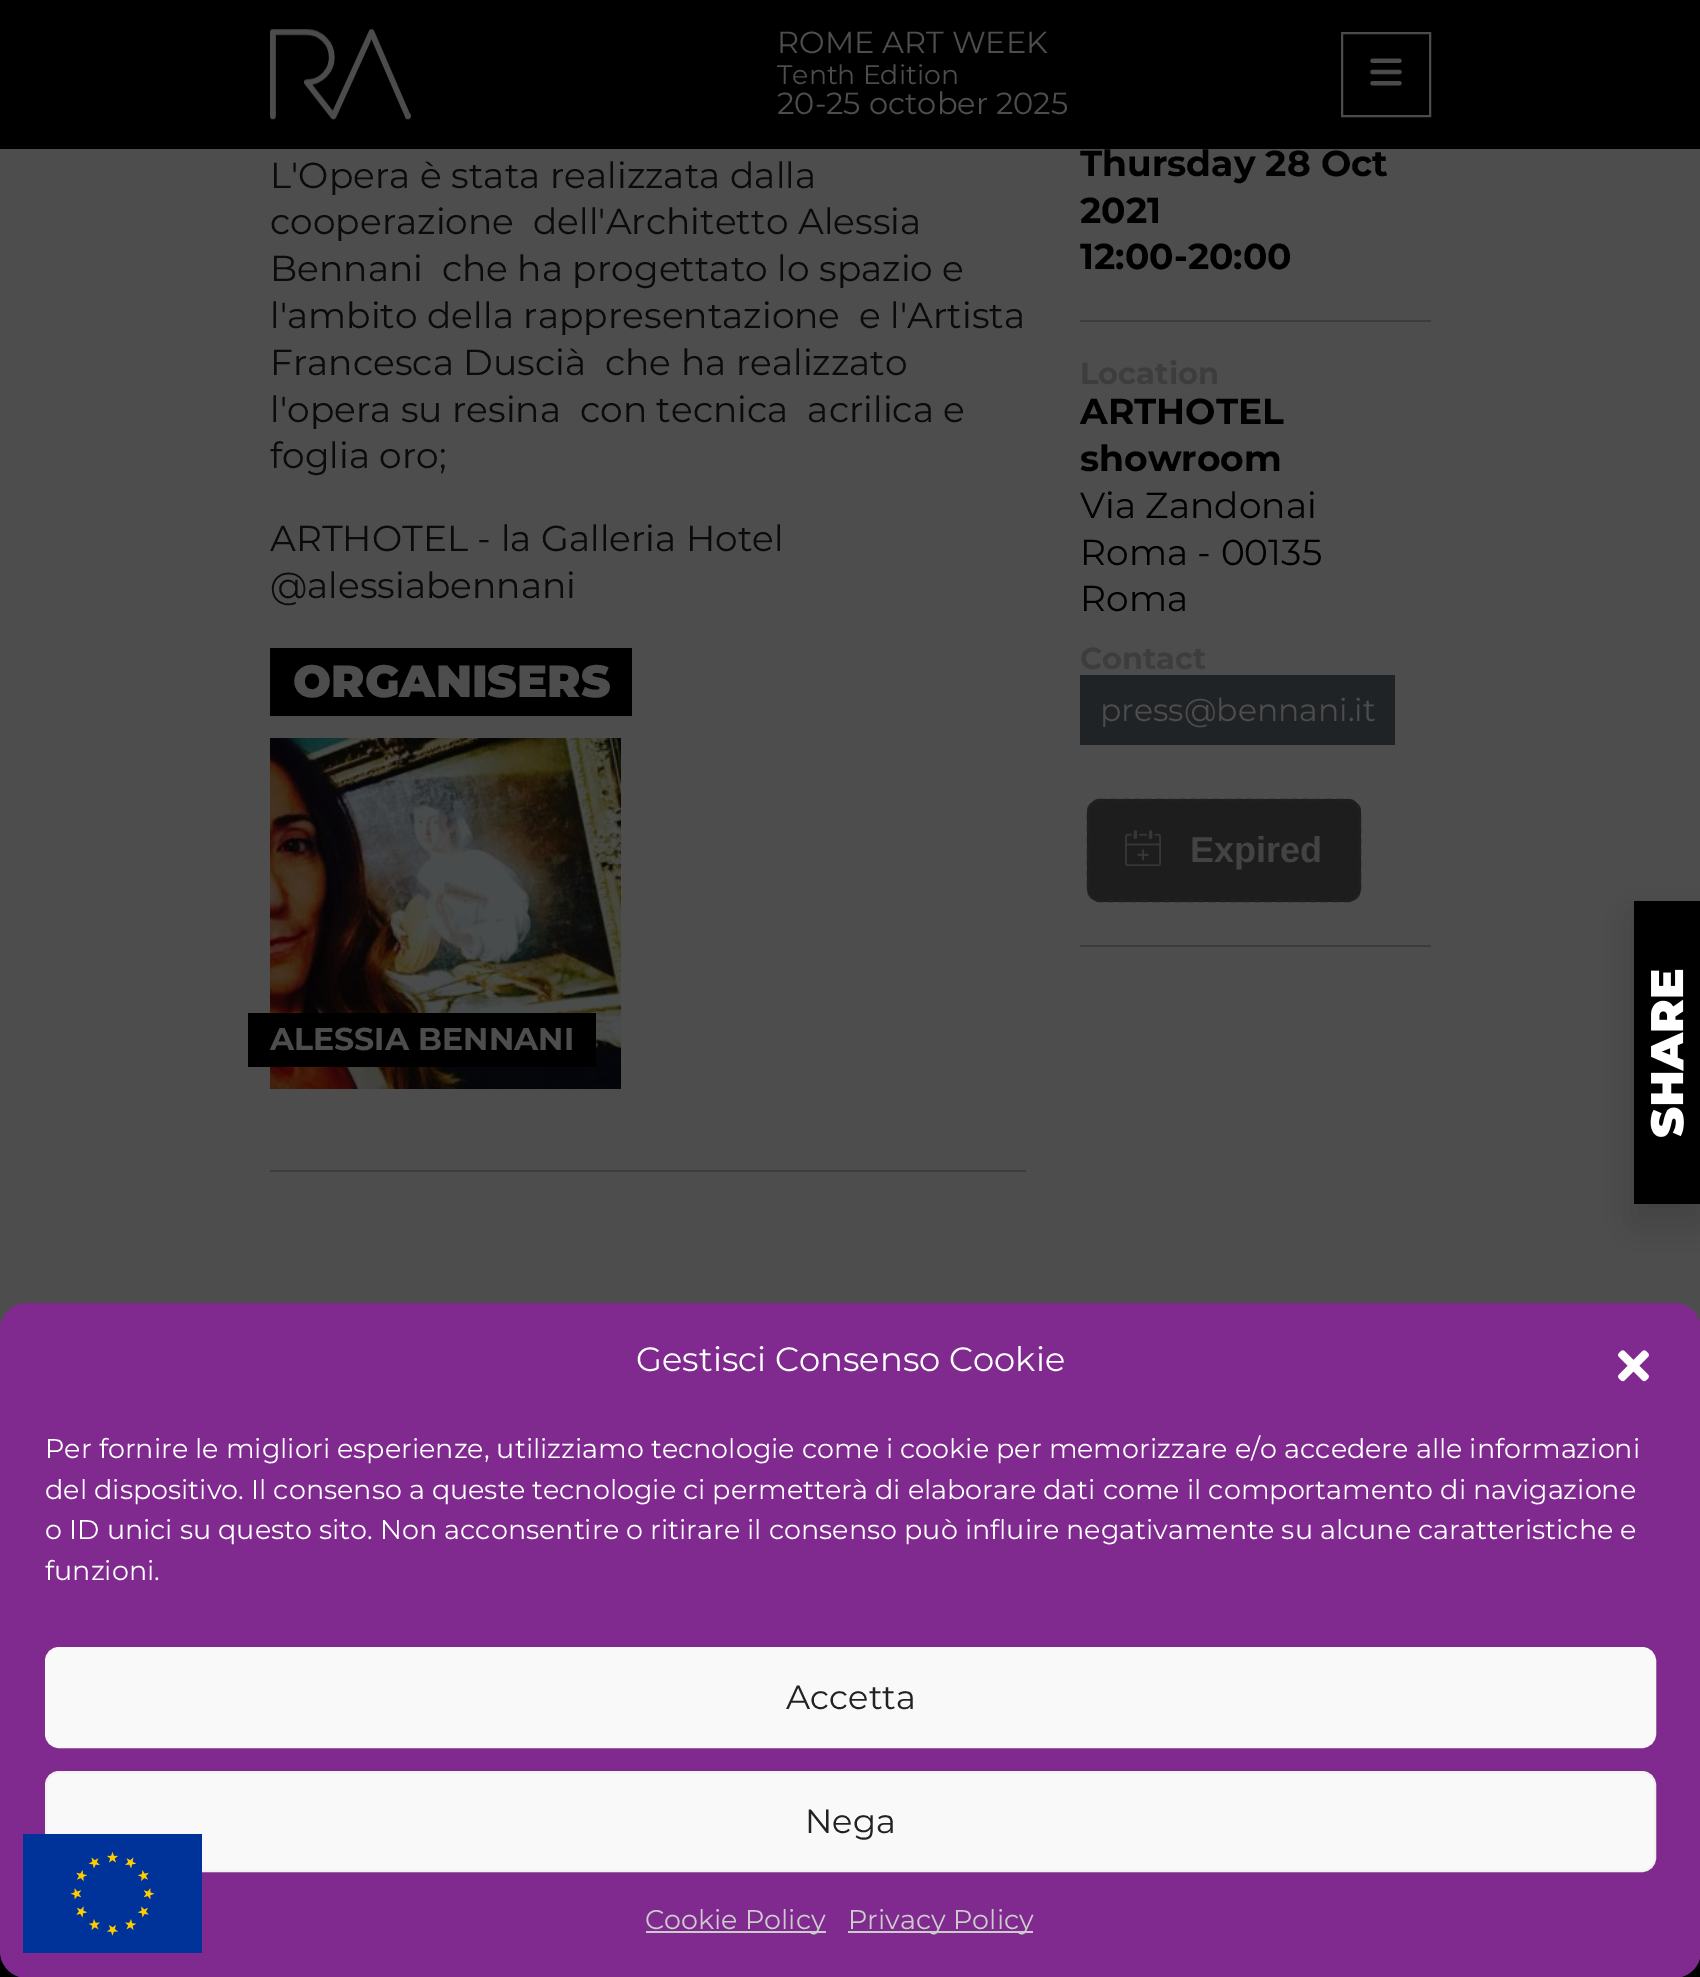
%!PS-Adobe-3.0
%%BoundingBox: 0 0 1700 1977
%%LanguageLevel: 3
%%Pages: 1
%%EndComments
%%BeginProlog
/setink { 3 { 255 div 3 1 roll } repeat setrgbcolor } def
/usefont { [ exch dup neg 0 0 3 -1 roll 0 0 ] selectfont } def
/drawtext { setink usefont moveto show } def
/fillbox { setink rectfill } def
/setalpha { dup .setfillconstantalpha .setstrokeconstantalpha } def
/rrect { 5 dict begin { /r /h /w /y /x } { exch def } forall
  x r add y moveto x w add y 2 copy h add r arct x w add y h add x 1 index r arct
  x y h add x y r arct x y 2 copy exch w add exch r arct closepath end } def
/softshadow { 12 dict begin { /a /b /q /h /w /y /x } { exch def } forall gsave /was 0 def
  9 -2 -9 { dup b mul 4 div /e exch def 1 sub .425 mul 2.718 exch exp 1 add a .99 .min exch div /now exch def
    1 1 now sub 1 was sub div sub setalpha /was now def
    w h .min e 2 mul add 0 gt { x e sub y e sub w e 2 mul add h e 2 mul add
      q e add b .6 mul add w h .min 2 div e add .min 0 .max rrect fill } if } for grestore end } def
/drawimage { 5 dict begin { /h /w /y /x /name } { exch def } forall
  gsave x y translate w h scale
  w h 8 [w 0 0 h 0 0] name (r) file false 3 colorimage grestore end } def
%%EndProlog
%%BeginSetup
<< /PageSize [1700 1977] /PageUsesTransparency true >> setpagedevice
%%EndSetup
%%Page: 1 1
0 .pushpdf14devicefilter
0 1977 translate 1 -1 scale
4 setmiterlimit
0 0 1700 1977 77 77 77 fillbox
0 0 1700 149 0 0 0 fillbox
(assets/img1.rgb) 270 29 141 91 drawimage
(ROME ART WEEK) 777 53 /Montserrat-Regular 30.5 77 77 77 drawtext
(Tenth Edition) 777 84 /Montserrat-Regular 26.75 77 77 77 drawtext
(20-25 october 2025) 777 114 /Montserrat-Regular 30.5 77 77 77 drawtext
74 75 75 setink
2 setlinewidth
1342 33 88 83 rectstroke
(assets/img2.rgb) 1370 58 32 28 drawimage
(L'Opera è stata realizzata dalla) 270 188 /Montserrat-Regular 36 10 11 12 drawtext
(cooperazione  dell'Architetto Alessia) 270 234 /Montserrat-Regular 36 10 11 12 drawtext
(Bennani  che ha progettato lo spazio e) 270 281 /Montserrat-Regular 36 10 11 12 drawtext
(l'ambito della rappresentazione  e l'Artista) 270 328 /Montserrat-Regular 36 10 11 12 drawtext
(Francesca Duscià  che ha realizzato) 270 375 /Montserrat-Regular 36 10 11 12 drawtext
(l'opera su resina  con tecnica  acrilica e) 270 422 /Montserrat-Regular 36 10 11 12 drawtext
(foglia oro;) 270 468 /Montserrat-Regular 36 10 11 12 drawtext
(ARTHOTEL - la Galleria Hotel) 270 551 /Montserrat-Regular 36 10 11 12 drawtext
(@alessiabennani) 270 598 /Montserrat-Regular 36 10 11 12 drawtext
270 648 362 68 0 0 0 fillbox
(ORGANISERS) 293 697 /Montserrat-Black 45 77 77 77 drawtext
(assets/img3.rgb) 270 738 351 351 drawimage
248 1013 348 54 0 0 0 fillbox
(ALESSIA BENNANI) 270 1050 /Montserrat-Bold 31.5 77 77 77 drawtext
270 1170 756 2 60 60 61 fillbox
(Thursday 28 Oct) 1080 176 /Montserrat-Bold 36 0 0 0 drawtext
(2021) 1080 223 /Montserrat-Bold 36 0 0 0 drawtext
(12:00-20:00) 1080 269 /Montserrat-Bold 36 0 0 0 drawtext
1080 320 351 2 60 60 61 fillbox
(Location) 1080 384 /Montserrat-Bold 30.5 61 61 61 drawtext
(ARTHOTEL) 1080 424 /Montserrat-Bold 36 0 0 0 drawtext
(showroom) 1080 471 /Montserrat-Bold 36 0 0 0 drawtext
(Via Zandonai) 1080 518 /Montserrat-Regular 36 0 0 0 drawtext
(Roma - 00135) 1080 565 /Montserrat-Regular 36 0 0 0 drawtext
(Roma) 1080 611 /Montserrat-Regular 36 0 0 0 drawtext
(Contact) 1080 669 /Montserrat-Bold 30.5 61 61 61 drawtext
1080 675 315 70 32 35 38 fillbox
(press@bennani.it) 1100 721 /Montserrat-Regular 31.5 77 77 77 drawtext
29 29 29 setink
1087 799 274 103 14 rrect fill
32 32 32 setink
2.2 setlinewidth
[6.75 4.5] 0 setdash
1100 800 moveto 1348 800 lineto 1354.5 800 1360 805.5 1360 812 curveto 1360 889 lineto 1360 895.5 1354.5 901 1348 901 curveto 1100 901 lineto 1093.5 901 1088 895.5 1088 889 curveto 1088 812 lineto 1088 805.5 1093.5 800 1100 800 curveto closepath stroke
(assets/img4.rgb) 1125 830 36 36 drawimage
(Expired) 1190 862 /LiberationSans-Bold 36 67 67 67 drawtext
1080 945 351 2 60 60 61 fillbox
0 0 0 setink
1634 918 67 304 0 18 0.15 softshadow
(assets/img5.rgb) 1634 901 66 303 drawimage
0 1951 1700 26 0 0 0 fillbox
128 41 143 setink
0 1303 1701 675 27 rrect fill
(Gestisci Consenso Cookie) 636 1371 /Montserrat-Regular 33.75 255 255 255 drawtext
(assets/img6.rgb) 1618 1350 31 32 drawimage
(Per fornire le migliori esperienze, utilizziamo tecnologie come i cookie per memorizzare e/o accedere alle informazioni) 45 1458 /Montserrat-Regular 27 255 255 255 drawtext
(del dispositivo. Il consenso a queste tecnologie ci permetterà di elaborare dati come il comportamento di navigazione) 45 1499 /Montserrat-Regular 27 255 255 255 drawtext
(o ID unici su questo sito. Non acconsentire o ritirare il consenso può influire negativamente su alcune caratteristiche e) 45 1539 /Montserrat-Regular 27 255 255 255 drawtext
(funzioni.) 45 1580 /Montserrat-Regular 27 255 255 255 drawtext
249 249 249 setink
46 1648 1609 99 13 rrect gsave fill grestore
2 setlinewidth
[] 0 setdash
stroke
(Accetta) 786 1709 /Montserrat-Regular 33.75 34 34 34 drawtext
249 249 249 setink
46 1772 1609 99 13 rrect gsave fill grestore
242 242 242 setink
stroke
(Nega) 805 1833 /Montserrat-Regular 33.75 34 34 34 drawtext
646 1931 180 2 204 204 204 fillbox
(Cookie Policy) 645 1929 /Montserrat-Regular 27 204 204 204 drawtext
848 1931 185 2 204 204 204 fillbox
(Privacy Policy) 848 1929 /Montserrat-Regular 27 204 204 204 drawtext
(assets/img7.rgb) 23 1834 179 119 drawimage
.poppdf14devicefilter showpage
%%EOF
